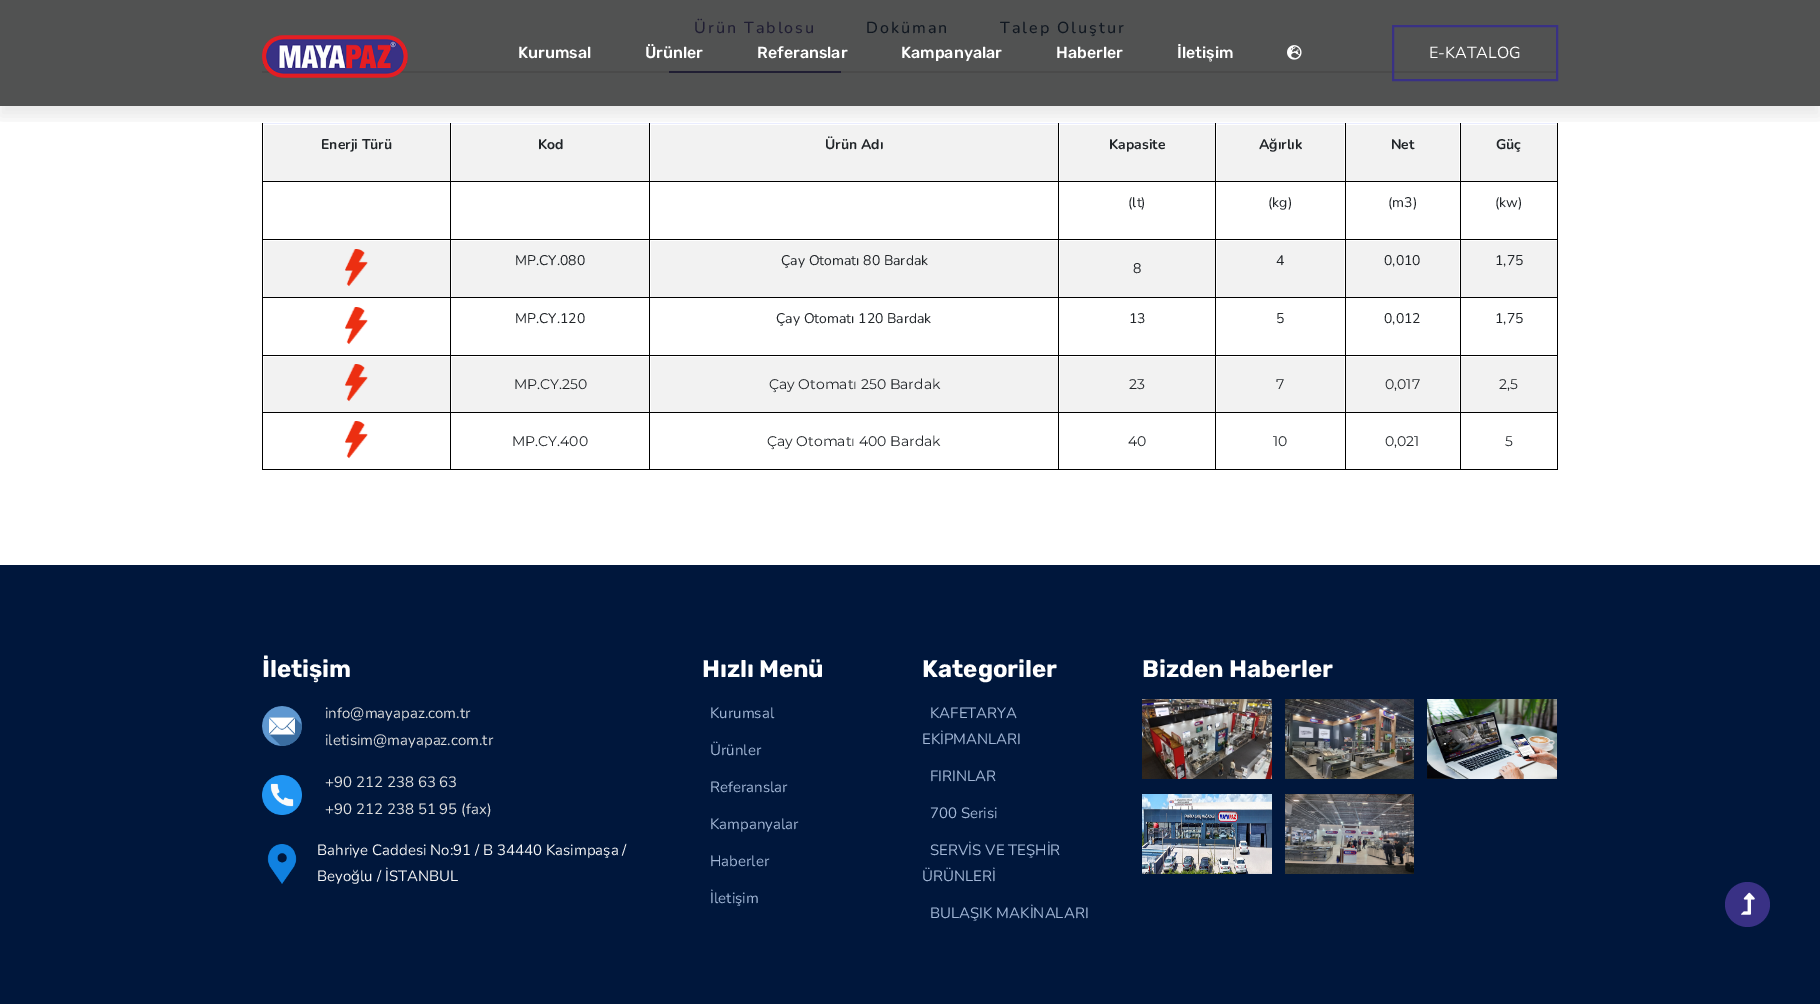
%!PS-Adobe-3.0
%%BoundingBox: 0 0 1820 1004
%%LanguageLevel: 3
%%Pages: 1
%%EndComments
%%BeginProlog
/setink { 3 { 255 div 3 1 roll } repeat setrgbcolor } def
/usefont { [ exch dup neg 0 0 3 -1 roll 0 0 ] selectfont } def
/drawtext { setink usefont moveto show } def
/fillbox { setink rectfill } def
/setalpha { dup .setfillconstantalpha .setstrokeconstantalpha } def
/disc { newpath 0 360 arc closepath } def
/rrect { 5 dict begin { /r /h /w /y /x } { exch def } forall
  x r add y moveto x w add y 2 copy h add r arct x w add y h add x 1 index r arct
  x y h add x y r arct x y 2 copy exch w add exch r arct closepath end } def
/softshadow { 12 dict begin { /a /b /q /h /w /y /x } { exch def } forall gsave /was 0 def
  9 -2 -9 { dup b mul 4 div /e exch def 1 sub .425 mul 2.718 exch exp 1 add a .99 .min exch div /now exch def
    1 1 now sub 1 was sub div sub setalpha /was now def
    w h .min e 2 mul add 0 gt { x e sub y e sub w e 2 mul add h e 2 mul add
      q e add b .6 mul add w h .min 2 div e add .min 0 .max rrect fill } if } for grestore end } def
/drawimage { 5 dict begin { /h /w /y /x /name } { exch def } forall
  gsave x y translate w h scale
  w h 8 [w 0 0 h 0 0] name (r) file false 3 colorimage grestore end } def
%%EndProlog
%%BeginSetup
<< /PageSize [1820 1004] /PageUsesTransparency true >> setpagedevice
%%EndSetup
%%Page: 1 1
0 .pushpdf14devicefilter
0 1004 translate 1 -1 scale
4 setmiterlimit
0 0 1820 1004 255 255 255 fillbox
0 0 1820 106 81 82 82 fillbox
262 71 1296 2 74 74 74 fillbox
/Nunito-Medium 16 usefont
32 30 51 setink
694 33 moveto 2 0 (Ürün Tablosu) ashow
669 71 172 2 32 30 51 fillbox
17 24 33 setink
866 33 moveto 2 0 (Doküman) ashow
1000 33 moveto 2 0 (Talep Oluştur) ashow
262 469 1296 1 0 0 0 fillbox
264 125 186 56 242 242 242 fillbox
262 123 1296 1 234 237 255 fillbox
1557 181 1 289 0 0 0 fillbox
1557 123 1 59 0 0 0 fillbox
1460 412 1 58 0 0 0 fillbox
1460 412 98 1 0 0 0 fillbox
1460 355 1 58 0 0 0 fillbox
1460 355 98 1 0 0 0 fillbox
1460 297 1 59 0 0 0 fillbox
1460 297 98 1 0 0 0 fillbox
1460 239 1 59 0 0 0 fillbox
1460 239 98 1 0 0 0 fillbox
1460 181 1 59 0 0 0 fillbox
1460 181 98 1 0 0 0 fillbox
1460 123 1 59 0 0 0 fillbox
1345 412 1 58 0 0 0 fillbox
1345 412 116 1 0 0 0 fillbox
1345 355 1 58 0 0 0 fillbox
1345 355 116 1 0 0 0 fillbox
1345 297 1 59 0 0 0 fillbox
1345 297 116 1 0 0 0 fillbox
1345 239 1 59 0 0 0 fillbox
1345 239 116 1 0 0 0 fillbox
1345 181 1 59 0 0 0 fillbox
1345 181 116 1 0 0 0 fillbox
1345 123 1 59 0 0 0 fillbox
1215 412 1 58 0 0 0 fillbox
1215 412 131 1 0 0 0 fillbox
1215 355 1 58 0 0 0 fillbox
1215 355 131 1 0 0 0 fillbox
1215 297 1 59 0 0 0 fillbox
1215 297 131 1 0 0 0 fillbox
1215 239 1 59 0 0 0 fillbox
1215 239 131 1 0 0 0 fillbox
1215 181 1 59 0 0 0 fillbox
1215 181 131 1 0 0 0 fillbox
1215 123 1 59 0 0 0 fillbox
1058 412 1 58 0 0 0 fillbox
1058 412 158 1 0 0 0 fillbox
1058 355 1 58 0 0 0 fillbox
1058 355 158 1 0 0 0 fillbox
1058 297 1 59 0 0 0 fillbox
1058 297 158 1 0 0 0 fillbox
1058 239 1 59 0 0 0 fillbox
1058 239 158 1 0 0 0 fillbox
1058 181 1 59 0 0 0 fillbox
1058 181 158 1 0 0 0 fillbox
1058 123 1 59 0 0 0 fillbox
649 412 1 58 0 0 0 fillbox
649 412 410 1 0 0 0 fillbox
649 355 1 58 0 0 0 fillbox
649 355 410 1 0 0 0 fillbox
649 297 1 59 0 0 0 fillbox
649 297 410 1 0 0 0 fillbox
649 239 1 59 0 0 0 fillbox
649 239 410 1 0 0 0 fillbox
649 181 1 59 0 0 0 fillbox
649 181 410 1 0 0 0 fillbox
649 123 1 59 0 0 0 fillbox
450 412 1 58 0 0 0 fillbox
450 412 200 1 0 0 0 fillbox
450 355 1 58 0 0 0 fillbox
450 355 200 1 0 0 0 fillbox
450 297 1 59 0 0 0 fillbox
450 297 200 1 0 0 0 fillbox
450 239 1 59 0 0 0 fillbox
450 239 200 1 0 0 0 fillbox
450 181 1 59 0 0 0 fillbox
450 181 200 1 0 0 0 fillbox
450 123 1 59 0 0 0 fillbox
262 412 1 58 0 0 0 fillbox
262 412 189 1 0 0 0 fillbox
262 355 1 58 0 0 0 fillbox
262 355 189 1 0 0 0 fillbox
262 297 1 59 0 0 0 fillbox
262 297 189 1 0 0 0 fillbox
262 239 1 59 0 0 0 fillbox
262 239 189 1 0 0 0 fillbox
262 181 1 59 0 0 0 fillbox
262 181 189 1 0 0 0 fillbox
262 123 1 59 0 0 0 fillbox
(Enerji Türü) 321 149 /Nunito-Bold 14 33 37 41 drawtext
452 125 197 56 242 242 242 fillbox
(Kod) 538 149 /Nunito-Bold 14 33 37 41 drawtext
651 125 407 56 242 242 242 fillbox
(Ürün Adı) 825 149 /Nunito-Bold 14 33 37 41 drawtext
1060 125 155 56 242 242 242 fillbox
(Kapasite) 1109 149 /Nunito-Bold 14 33 37 41 drawtext
1217 125 127 56 242 242 242 fillbox
(Ağırlık) 1259 149 /Nunito-Bold 14 33 37 41 drawtext
1346 125 113 56 242 242 242 fillbox
(Net) 1391 149 /Nunito-Bold 14 33 37 41 drawtext
1461 125 96 56 242 242 242 fillbox
(Güç) 1496 149 /Nunito-Bold 14 33 37 41 drawtext
(\(lt\)) 1128 207 /Nunito-Regular 14 33 37 41 drawtext
(\(kg\)) 1268 207 /Nunito-Regular 14 33 37 41 drawtext
(\(m3\)) 1388 207 /Nunito-Regular 14 33 37 41 drawtext
(\(kw\)) 1495 207 /Nunito-Regular 14 33 37 41 drawtext
264 241 186 56 242 242 242 fillbox
(assets/img1.rgb) 345 249 23 38 drawimage
452 241 197 56 242 242 242 fillbox
(MP.CY.080) 515 265 /Nunito-Regular 14 33 37 41 drawtext
651 241 407 56 242 242 242 fillbox
(Çay Otomatı 80 Bardak) 781 265 /Nunito-Regular 14 33 37 41 drawtext
1217 241 127 56 242 242 242 fillbox
(4) 1276 265 /Nunito-Regular 14 33 37 41 drawtext
1346 241 113 56 242 242 242 fillbox
(0,010) 1384 265 /Nunito-Regular 14 33 37 41 drawtext
1461 241 96 56 242 242 242 fillbox
(1,75) 1495 265 /Nunito-Regular 14 33 37 41 drawtext
1060 241 155 56 242 242 242 fillbox
(8) 1133 273 /Nunito-Regular 14 33 37 41 drawtext
(assets/img2.rgb) 345 307 23 38 drawimage
(MP.CY.120) 515 323 /Nunito-Regular 14 33 37 41 drawtext
(Çay Otomatı 120 Bardak) 776 323 /Nunito-Regular 14 33 37 41 drawtext
(13) 1129 323 /Nunito-Regular 14 33 37 41 drawtext
(5) 1276 323 /Nunito-Regular 14 33 37 41 drawtext
(0,012) 1384 323 /Nunito-Regular 14 33 37 41 drawtext
(1,75) 1495 323 /Nunito-Regular 14 33 37 41 drawtext
264 357 186 55 242 242 242 fillbox
(assets/img1.rgb) 345 364 23 38 drawimage
452 357 197 55 242 242 242 fillbox
(MP.CY.250) 514 389 /Montserrat-Regular 14 33 37 41 drawtext
651 357 407 55 242 242 242 fillbox
(Çay Otomatı 250 Bardak) 769 389 /Montserrat-Regular 14 33 37 41 drawtext
1060 357 155 55 242 242 242 fillbox
(23) 1129 389 /Montserrat-Regular 14 33 37 41 drawtext
1217 357 127 55 242 242 242 fillbox
(7) 1276 389 /Montserrat-Regular 14 33 37 41 drawtext
1346 357 113 55 242 242 242 fillbox
(0,017) 1385 389 /Montserrat-Regular 14 33 37 41 drawtext
1461 357 96 55 242 242 242 fillbox
(2,5) 1499 389 /Montserrat-Regular 14 33 37 41 drawtext
(assets/img2.rgb) 345 421 23 38 drawimage
(MP.CY.400) 512 446 /Montserrat-Regular 14 33 37 41 drawtext
(Çay Otomatı 400 Bardak) 767 446 /Montserrat-Regular 14 33 37 41 drawtext
(40) 1128 446 /Montserrat-Regular 14 33 37 41 drawtext
(10) 1273 446 /Montserrat-Regular 14 33 37 41 drawtext
(0,021) 1385 446 /Montserrat-Regular 14 33 37 41 drawtext
(5) 1505 446 /Montserrat-Regular 14 33 37 41 drawtext
gsave
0 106 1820 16 rectclip
25 25 25 setink
0 10 1820 106 0 7.5 0.1 softshadow
grestore
(assets/img3.rgb) 262 35 146 43 drawimage
(Kurumsal) 518 58 /Rubik-Medium 16 255 255 255 drawtext
(Ürünler) 645 58 /Rubik-Medium 16 255 255 255 drawtext
(Referanslar) 757 58 /Rubik-Medium 16 255 255 255 drawtext
(Kampanyalar) 901 58 /Rubik-Medium 16 255 255 255 drawtext
(Haberler) 1056 58 /Rubik-Medium 16 255 255 255 drawtext
(İletişim) 1177 58 /Rubik-Medium 16 255 255 255 drawtext
(assets/img4.rgb) 1287 45 15 15 drawimage
57 49 133 setink
2 setlinewidth
1393 26 164 54 rectstroke
(E-KATALOG) 1429 58 /Nunito-Regular 16 255 255 255 drawtext
0 565 1820 439 0 23 60 fillbox
(İletişim) 262 677 /Rubik-Bold 24 255 255 255 drawtext
(assets/img5.rgb) 262 706 40 40 drawimage
(info@mayapaz.com.tr) 325 718 /Nunito-Regular 15 221 221 221 drawtext
(iletisim@mayapaz.com.tr) 325 745 /Nunito-Regular 15 221 221 221 drawtext
(assets/img6.rgb) 262 775 40 40 drawimage
(+90 212 238 63 63) 325 787 /Nunito-Regular 15 221 221 221 drawtext
(+90 212 238 51 95 \(fax\)) 325 814 /Nunito-Regular 15 221 221 221 drawtext
(assets/img7.rgb) 267 844 30 40 drawimage
(Bahriye Caddesi No:91 / B 34440 Kasimpaşa /) 317 855 /Nunito-Regular 15 245 245 245 drawtext
(Beyoğlu / İSTANBUL) 317 881 /Nunito-Regular 15 245 245 245 drawtext
(Hızlı Menü) 702 677 /Rubik-Bold 24 255 255 255 drawtext
(Kurumsal) 710 718 /Nunito-Regular 15 162 182 213 drawtext
(Ürünler) 710 755 /Nunito-Regular 15 162 182 213 drawtext
(Referanslar) 710 792 /Nunito-Regular 15 162 182 213 drawtext
(Kampanyalar) 710 829 /Nunito-Regular 15 162 182 213 drawtext
(Haberler) 710 866 /Nunito-Regular 15 162 182 213 drawtext
(İletişim) 710 903 /Nunito-Regular 15 162 182 213 drawtext
(Kategoriler) 922 677 /Rubik-Bold 24 255 255 255 drawtext
(KAFETARYA) 930 718 /Nunito-Regular 15 162 182 213 drawtext
(EKİPMANLARI) 922 744 /Nunito-Regular 15 162 182 213 drawtext
(FIRINLAR) 930 781 /Nunito-Regular 15 162 182 213 drawtext
(700 Serisi) 930 818 /Nunito-Regular 15 162 182 213 drawtext
(SERVİS VE TEŞHİR) 930 855 /Nunito-Regular 15 162 182 213 drawtext
(ÜRÜNLERİ) 922 881 /Nunito-Regular 15 162 182 213 drawtext
(BULAŞIK MAKİNALARI) 930 918 /Nunito-Regular 15 162 182 213 drawtext
(Bizden Haberler) 1142 677 /Rubik-Bold 24 255 255 255 drawtext
(assets/img8.rgb) 1142 699 130 80 drawimage
(assets/img9.rgb) 1285 699 129 80 drawimage
(assets/img10.rgb) 1427 699 130 80 drawimage
(assets/img11.rgb) 1142 794 130 80 drawimage
(assets/img12.rgb) 1285 794 129 80 drawimage
57 49 133 setink
1747.5 904.5 22.5 disc fill
(assets/img13.rgb) 1741 892 14 23 drawimage
.poppdf14devicefilter showpage
%%EOF
